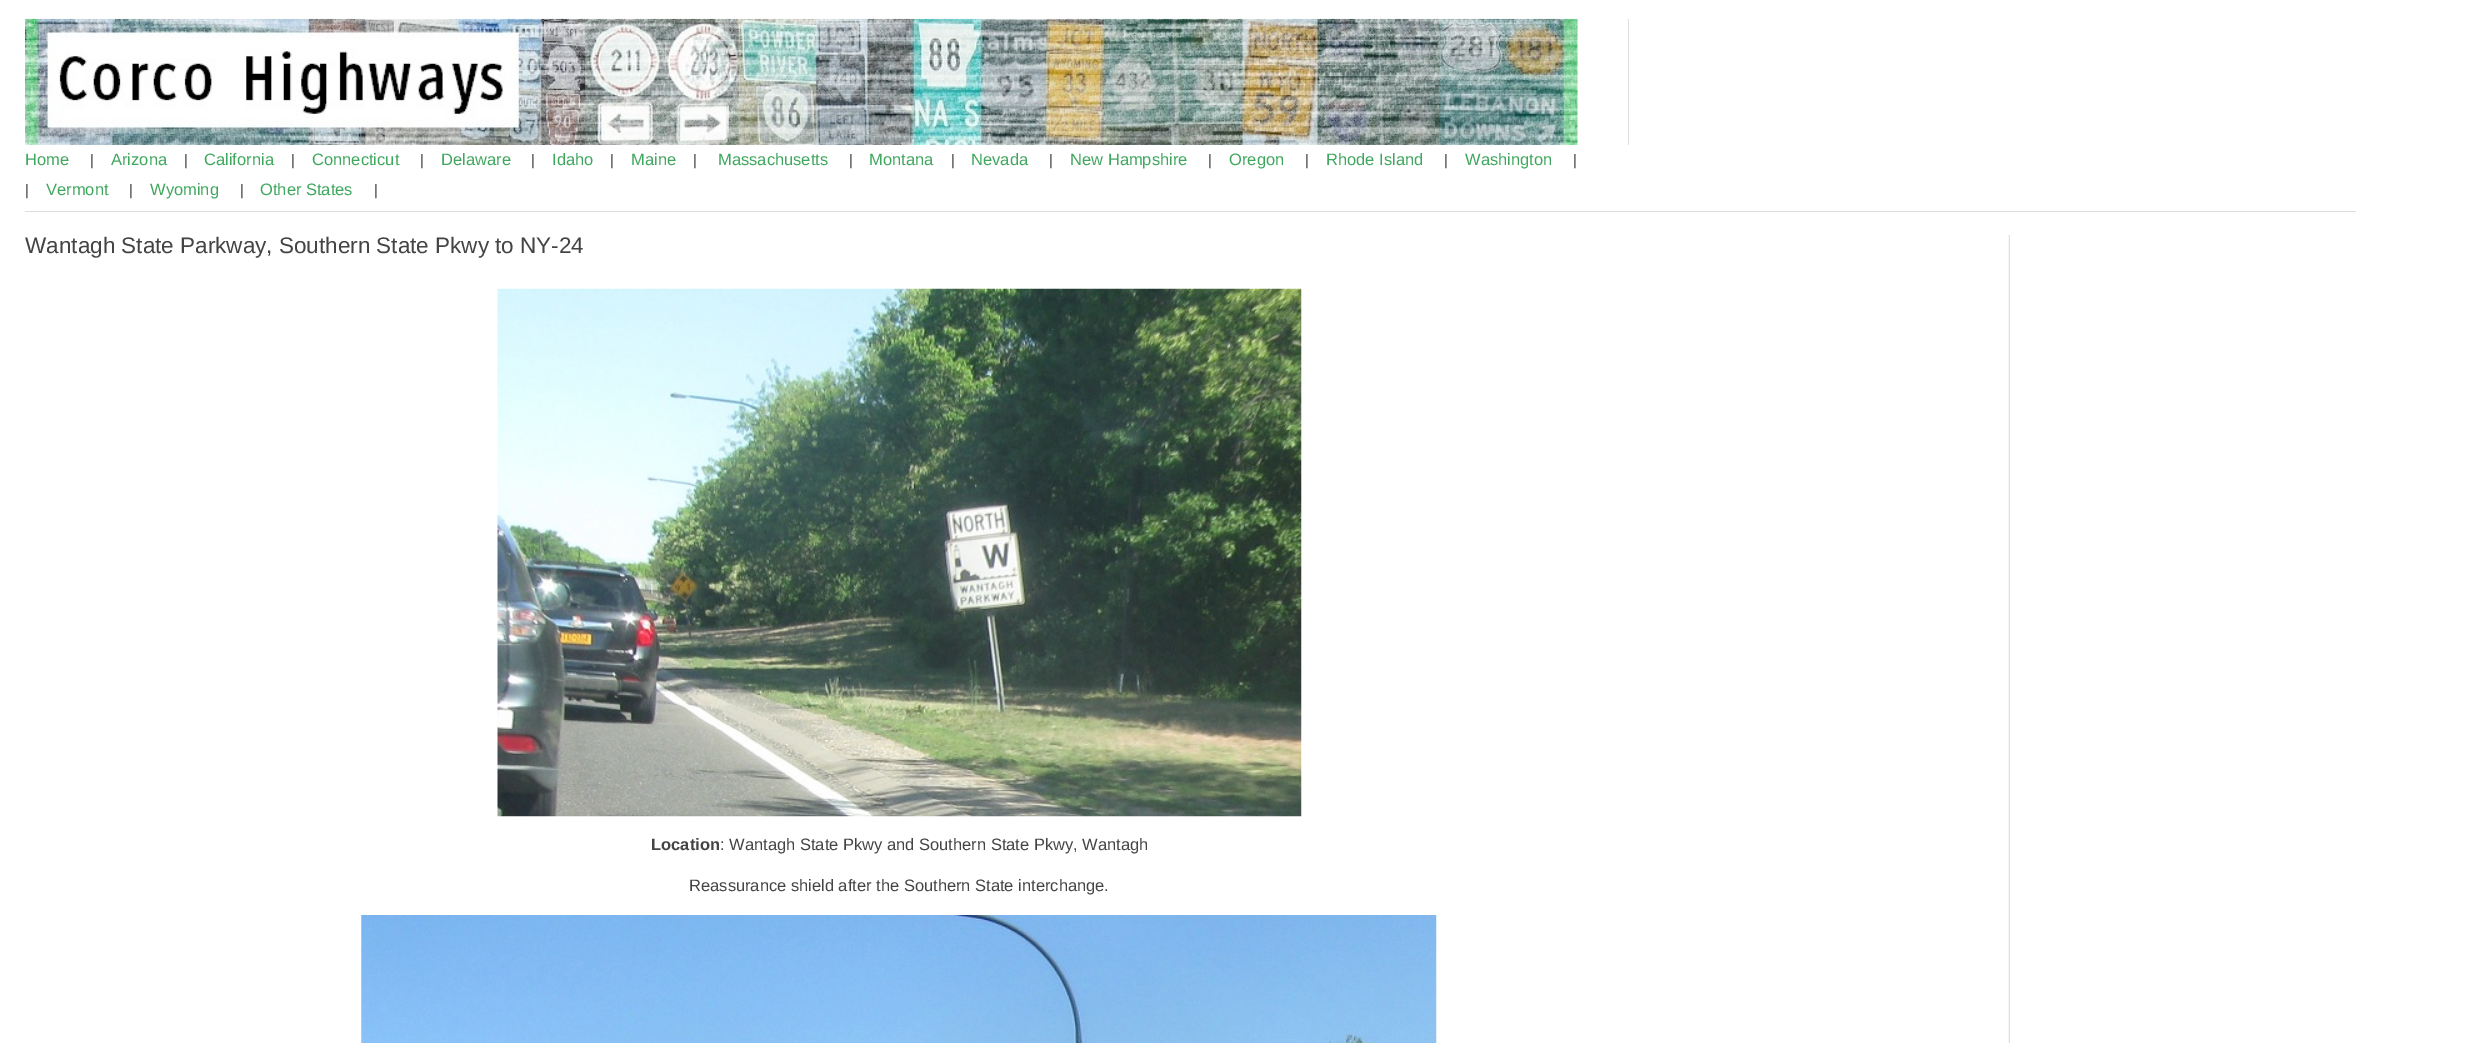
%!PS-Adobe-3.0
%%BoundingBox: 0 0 2479 1043
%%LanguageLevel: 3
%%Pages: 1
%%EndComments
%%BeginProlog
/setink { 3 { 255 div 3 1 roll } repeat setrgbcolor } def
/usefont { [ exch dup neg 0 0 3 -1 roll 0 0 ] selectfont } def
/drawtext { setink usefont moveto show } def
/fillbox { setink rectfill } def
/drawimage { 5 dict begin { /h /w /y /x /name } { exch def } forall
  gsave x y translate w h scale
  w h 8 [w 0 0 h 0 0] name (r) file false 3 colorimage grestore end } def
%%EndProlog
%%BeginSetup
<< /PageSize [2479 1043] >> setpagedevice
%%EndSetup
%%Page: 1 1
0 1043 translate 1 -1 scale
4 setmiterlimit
0 0 2479 1043 255 255 255 fillbox
25 211 2331 1 221 221 221 fillbox
1628 19 1 126 221 221 221 fillbox
(assets/img1.rgb) 25 18 1553 127 drawimage
(Home) 25 165 /LiberationSans-Regular 16.5 63 167 94 drawtext
(|) 90 165 /LiberationSans-Regular 15 68 68 68 drawtext
(Arizona) 111 165 /LiberationSans-Regular 16.5 63 167 94 drawtext
(|) 184 165 /LiberationSans-Regular 15 68 68 68 drawtext
(California) 204 165 /LiberationSans-Regular 16.5 63 167 94 drawtext
(|) 291 165 /LiberationSans-Regular 15 68 68 68 drawtext
(Connecticut) 312 165 /LiberationSans-Regular 16.5 63 167 94 drawtext
(|) 420 165 /LiberationSans-Regular 15 68 68 68 drawtext
(Delaware) 441 165 /LiberationSans-Regular 16.5 63 167 94 drawtext
(|) 531 165 /LiberationSans-Regular 15 68 68 68 drawtext
(Idaho) 552 165 /LiberationSans-Regular 16.5 63 167 94 drawtext
(|) 610 165 /LiberationSans-Regular 15 68 68 68 drawtext
(Maine) 631 165 /LiberationSans-Regular 16.5 63 167 94 drawtext
(|) 693 165 /LiberationSans-Regular 15 68 68 68 drawtext
(Massachusetts) 718 165 /LiberationSans-Regular 16.5 63 167 94 drawtext
(|) 849 165 /LiberationSans-Regular 15 68 68 68 drawtext
(Montana) 869 165 /LiberationSans-Regular 16.5 63 167 94 drawtext
(|) 951 165 /LiberationSans-Regular 15 68 68 68 drawtext
(Nevada) 971 165 /LiberationSans-Regular 16.5 63 167 94 drawtext
(|) 1049 165 /LiberationSans-Regular 15 68 68 68 drawtext
(New Hampshire) 1070 165 /LiberationSans-Regular 16.5 63 167 94 drawtext
(|) 1208 165 /LiberationSans-Regular 15 68 68 68 drawtext
(Oregon) 1229 165 /LiberationSans-Regular 16.5 63 167 94 drawtext
(|) 1305 165 /LiberationSans-Regular 15 68 68 68 drawtext
(Rhode Island) 1326 165 /LiberationSans-Regular 16.5 63 167 94 drawtext
(|) 1444 165 /LiberationSans-Regular 15 68 68 68 drawtext
(Washington) 1465 165 /LiberationSans-Regular 16.5 63 167 94 drawtext
(|) 1573 165 /LiberationSans-Regular 15 68 68 68 drawtext
(|) 25 195 /LiberationSans-Regular 15 68 68 68 drawtext
(Vermont) 46 195 /LiberationSans-Regular 16.5 63 167 94 drawtext
(|) 129 195 /LiberationSans-Regular 15 68 68 68 drawtext
(Wyoming) 150 195 /LiberationSans-Regular 16.5 63 167 94 drawtext
(|) 240 195 /LiberationSans-Regular 15 68 68 68 drawtext
(Other States) 260 195 /LiberationSans-Regular 16.5 63 167 94 drawtext
(|) 374 195 /LiberationSans-Regular 15 68 68 68 drawtext
(assets/img2.rgb) 2008 235 2 808 drawimage
(Wantagh State Parkway, Southern State Pkwy to NY-24) 25 253 /LiberationSans-Regular 22.5 68 68 68 drawtext
(assets/img3.rgb) 497 288 805 529 drawimage
(Location) 651 850 /LiberationSans-Bold 16.5 68 68 68 drawtext
(: Wantagh State Pkwy and Southern State Pkwy, Wantagh) 720 850 /LiberationSans-Regular 16.5 68 68 68 drawtext
(Reassurance shield after the Southern State interchange.) 689 891 /LiberationSans-Regular 16.5 68 68 68 drawtext
(assets/img4.rgb) 361 915 1076 128 drawimage
showpage
%%EOF
